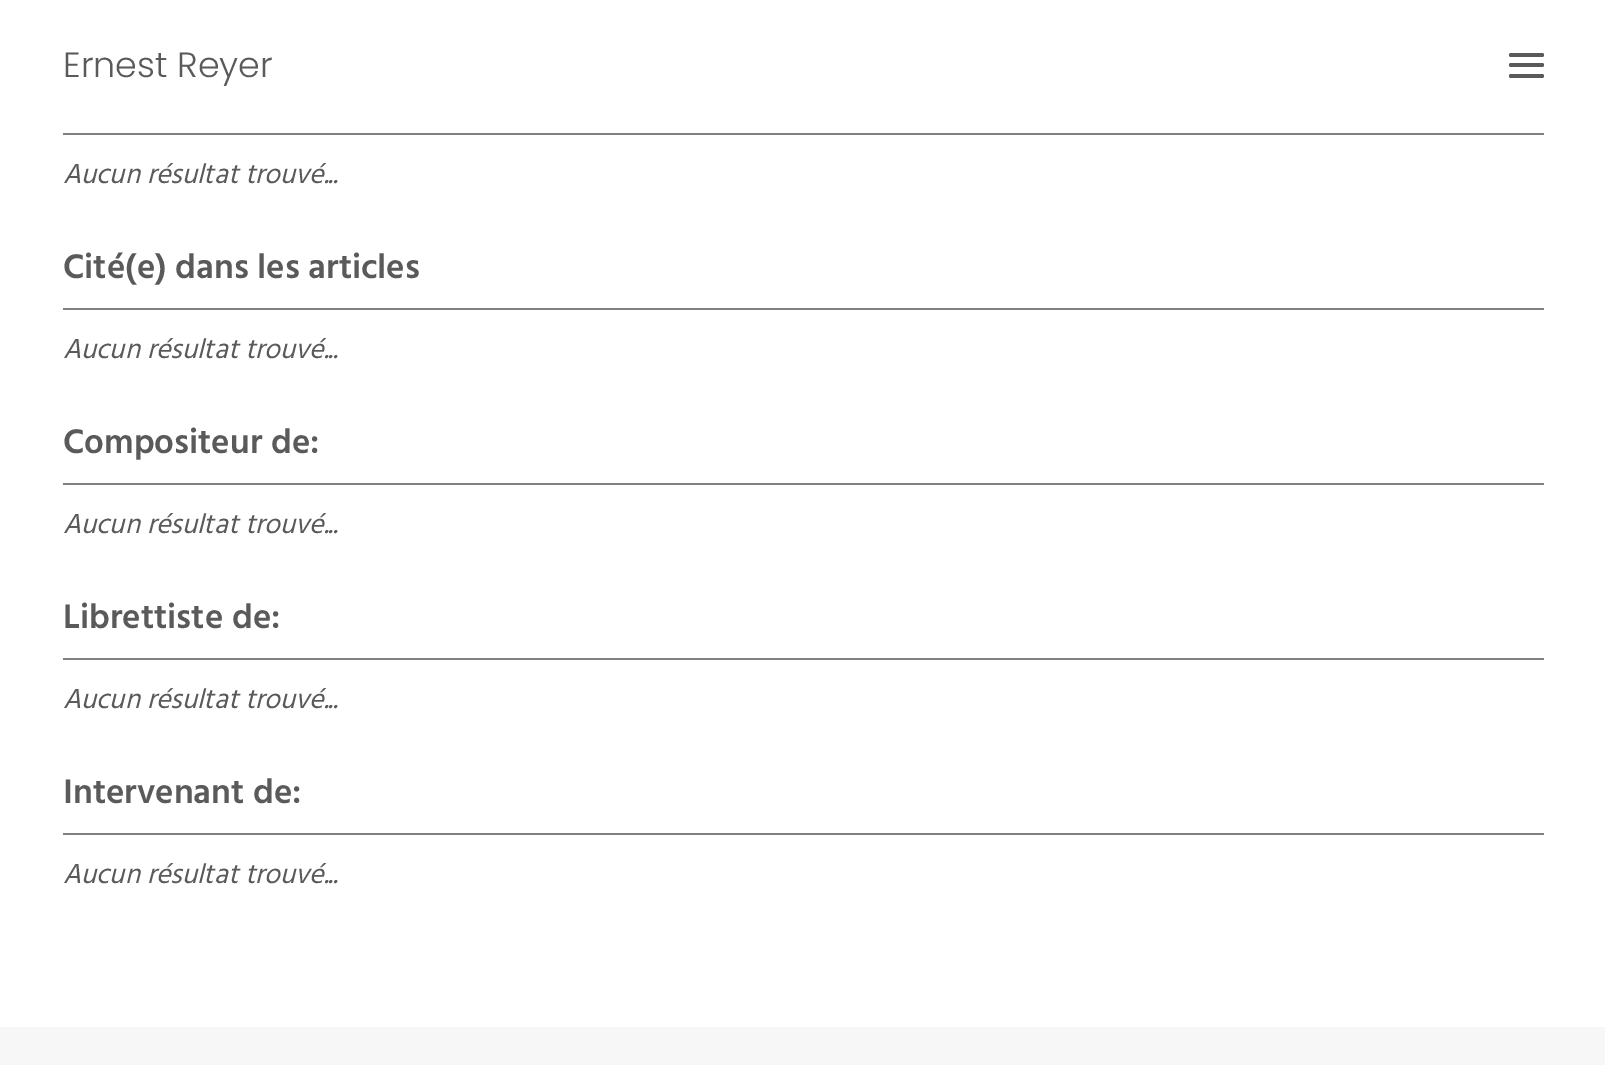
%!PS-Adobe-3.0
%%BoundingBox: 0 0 1605 1065
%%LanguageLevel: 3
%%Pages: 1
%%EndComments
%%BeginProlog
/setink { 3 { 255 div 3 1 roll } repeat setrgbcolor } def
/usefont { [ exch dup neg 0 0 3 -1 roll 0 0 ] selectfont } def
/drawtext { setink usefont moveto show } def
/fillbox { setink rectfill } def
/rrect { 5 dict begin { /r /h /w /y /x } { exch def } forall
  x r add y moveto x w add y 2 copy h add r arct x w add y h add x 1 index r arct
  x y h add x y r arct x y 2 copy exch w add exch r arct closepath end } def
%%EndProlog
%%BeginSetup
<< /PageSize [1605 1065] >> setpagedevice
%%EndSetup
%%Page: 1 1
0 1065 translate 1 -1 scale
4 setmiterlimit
0 0 1605 1065 255 255 255 fillbox
(Ernest Reyer) 63 77 /Poppins-Light 35 90 90 90 drawtext
1509 63 35 4 2 rrect fill
1509 53 35 4 2 rrect fill
1509 74 35 4 2 rrect fill
63 133 1481 2 128 128 128 fillbox
(Aucun résultat trouvé...) 63 183 /Hind-Italic 28 90 90 90 drawtext
63 308 1481 2 128 128 128 fillbox
(Cité\(e\) dans les articles) 63 278 /Hind-SemiBold 35 90 90 90 drawtext
(Aucun résultat trouvé...) 63 358 /Hind-Italic 28 90 90 90 drawtext
63 483 1481 2 128 128 128 fillbox
(Compositeur de:) 63 453 /Hind-SemiBold 35 90 90 90 drawtext
(Aucun résultat trouvé...) 63 533 /Hind-Italic 28 90 90 90 drawtext
63 658 1481 2 128 128 128 fillbox
(Librettiste de:) 63 628 /Hind-SemiBold 35 90 90 90 drawtext
(Aucun résultat trouvé...) 63 708 /Hind-Italic 28 90 90 90 drawtext
63 833 1481 2 128 128 128 fillbox
(Intervenant de:) 63 803 /Hind-SemiBold 35 90 90 90 drawtext
(Aucun résultat trouvé...) 63 883 /Hind-Italic 28 90 90 90 drawtext
0 1027 1605 38 247 247 247 fillbox
showpage
%%EOF
